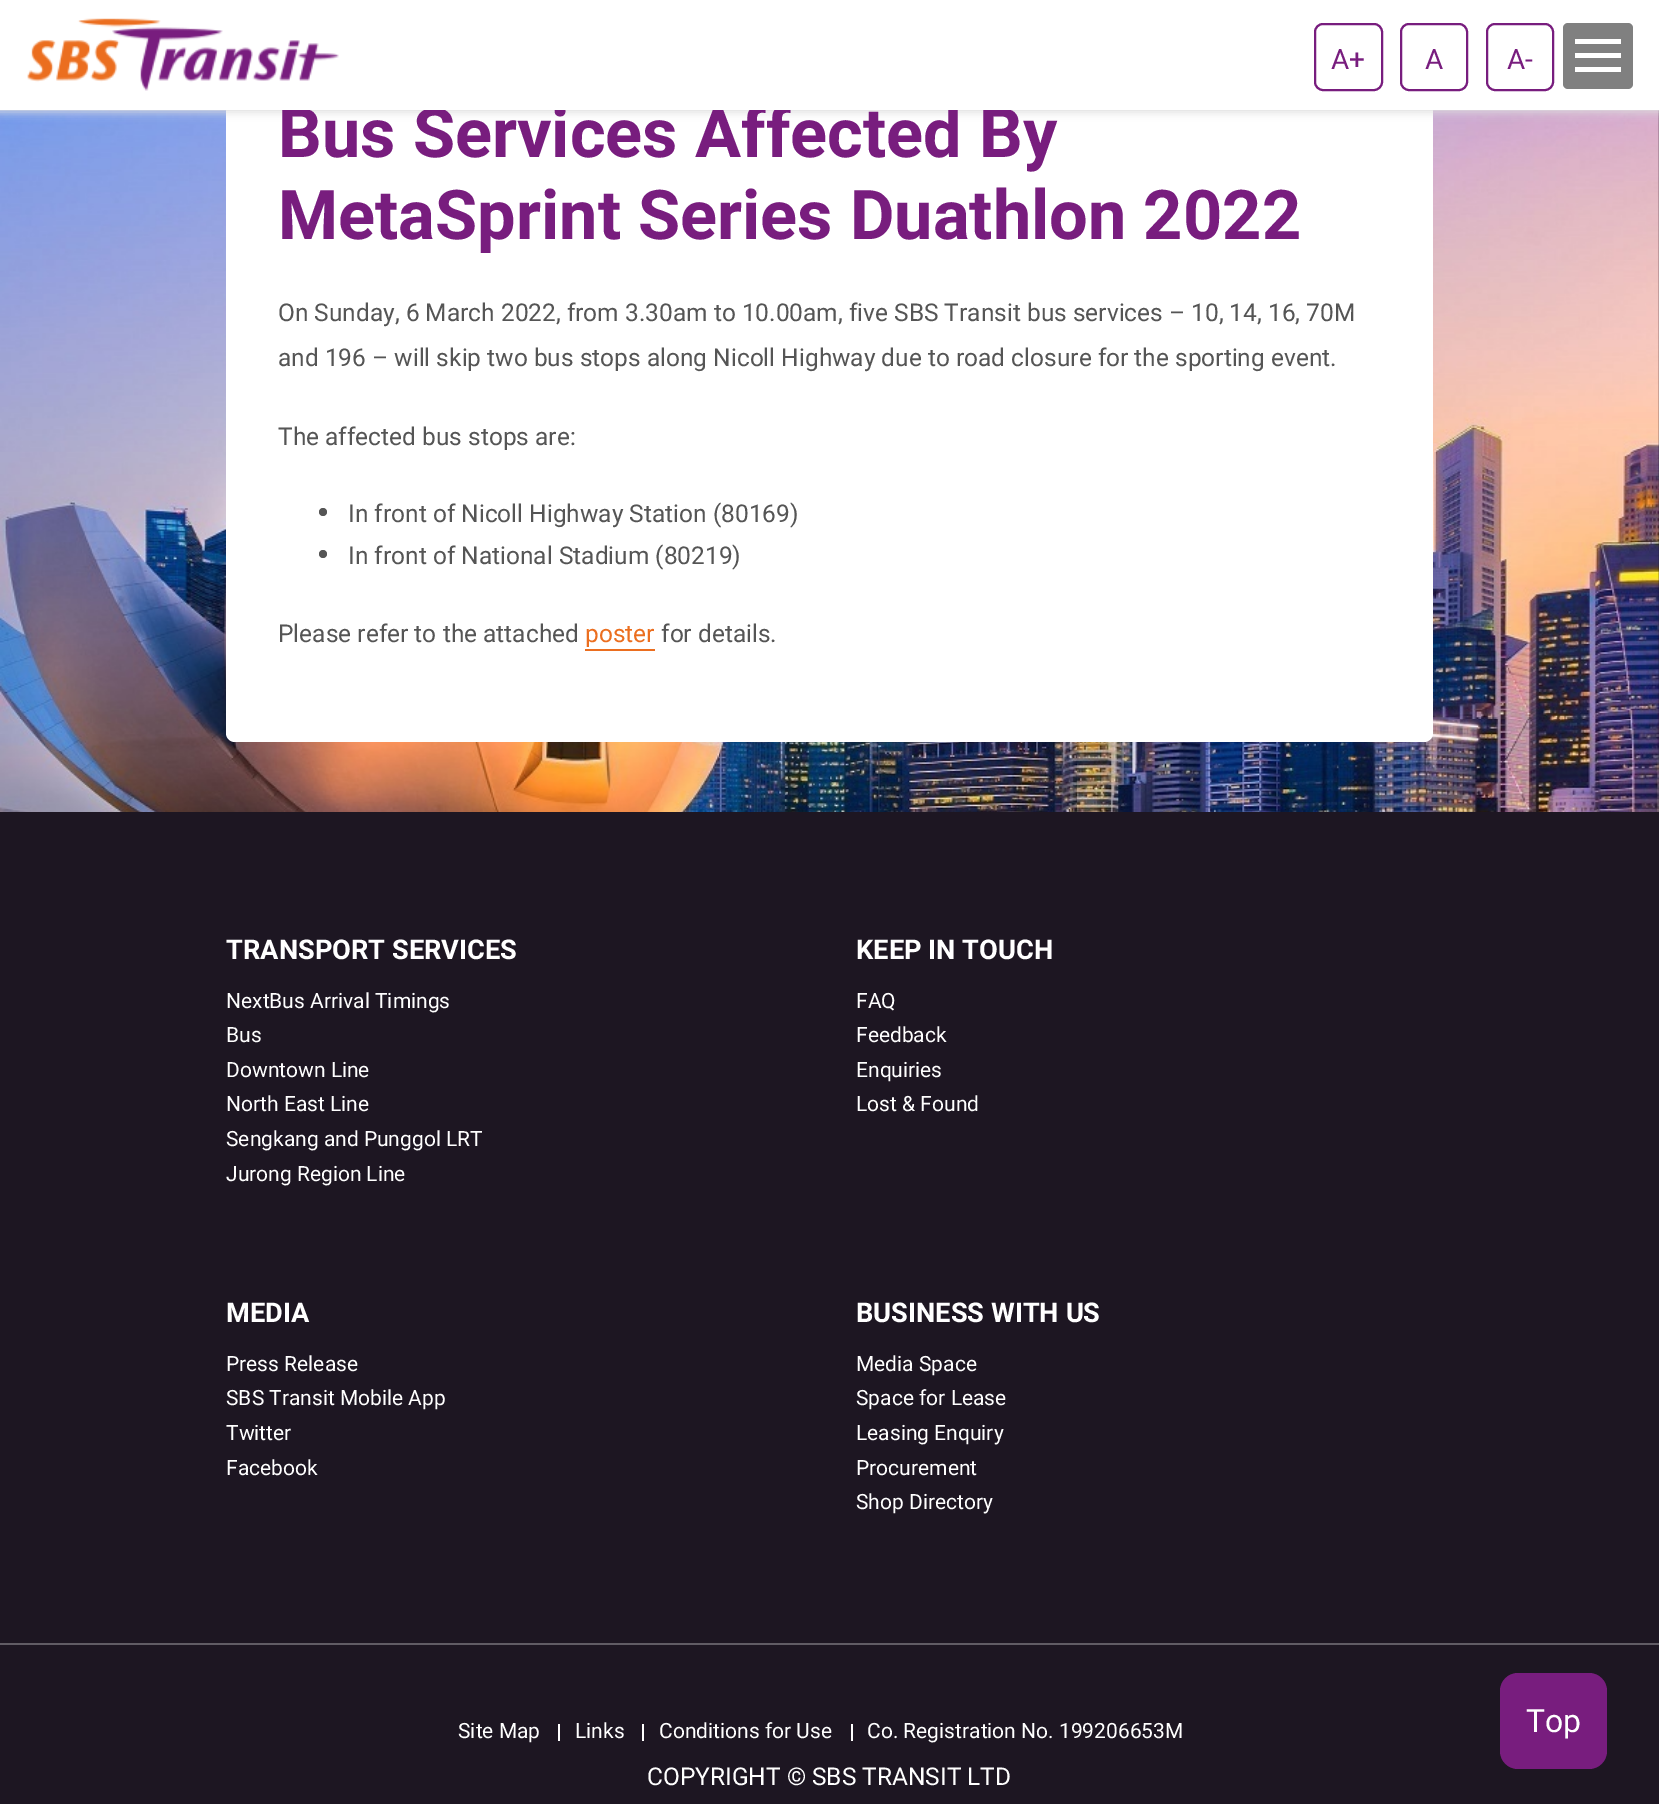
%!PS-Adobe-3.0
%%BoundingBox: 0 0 1659 1804
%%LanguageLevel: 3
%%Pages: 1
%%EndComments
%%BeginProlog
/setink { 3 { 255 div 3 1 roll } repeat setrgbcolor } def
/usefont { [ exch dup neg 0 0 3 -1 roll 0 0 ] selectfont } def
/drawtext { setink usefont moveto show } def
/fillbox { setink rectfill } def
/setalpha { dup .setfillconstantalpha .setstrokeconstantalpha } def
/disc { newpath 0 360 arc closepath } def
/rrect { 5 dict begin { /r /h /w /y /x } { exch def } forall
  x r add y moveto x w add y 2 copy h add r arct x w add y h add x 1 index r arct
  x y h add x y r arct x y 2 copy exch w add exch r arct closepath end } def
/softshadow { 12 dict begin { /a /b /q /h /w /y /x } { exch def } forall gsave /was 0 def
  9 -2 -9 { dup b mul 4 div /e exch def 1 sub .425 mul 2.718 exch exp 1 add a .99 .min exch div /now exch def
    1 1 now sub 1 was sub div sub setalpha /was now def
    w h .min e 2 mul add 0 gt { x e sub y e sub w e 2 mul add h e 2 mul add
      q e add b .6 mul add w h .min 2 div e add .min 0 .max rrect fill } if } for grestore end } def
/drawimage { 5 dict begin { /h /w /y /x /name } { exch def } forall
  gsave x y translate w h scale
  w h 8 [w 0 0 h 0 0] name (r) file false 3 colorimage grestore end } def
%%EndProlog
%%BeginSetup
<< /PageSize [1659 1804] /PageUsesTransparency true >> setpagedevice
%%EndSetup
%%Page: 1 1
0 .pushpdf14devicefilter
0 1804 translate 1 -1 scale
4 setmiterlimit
0 0 1659 1804 255 255 255 fillbox
(assets/img1.rgb) 0 110 1659 702 drawimage
226 -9 1207 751 9 rrect fill
221 221 221 setink
-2 -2 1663 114 0 4.5 1 softshadow
(Bus Services Affected By) 278 157 /Roboto-Bold 68.6 120 29 126 drawtext
0 0 1659 110 255 255 255 fillbox
(assets/img2.rgb) 27 18 312 73 drawimage
120 29 126 setink
2 setlinewidth
1315 24 67 66 8 rrect stroke
(A+) 1331 69 /Roboto-Regular 28 120 29 126 drawtext
1401 24 66 66 8 rrect stroke
(A) 1425 69 /Roboto-Regular 28 120 29 126 drawtext
1487 24 66 66 8 rrect stroke
(A-) 1507 69 /Roboto-Regular 28 120 29 126 drawtext
128 128 128 setink
1563 23 70 66 5 rrect fill
1575 39 46 5 255 255 255 fillbox
1575 53 46 5 255 255 255 fillbox
1575 67 46 5 255 255 255 fillbox
(MetaSprint Series Duathlon 2022) 278 239 /Roboto-Bold 68.6 120 29 126 drawtext
(On Sunday, 6 March 2022, from 3.30am to 10.00am, five SBS Transit bus services – 10, 14, 16, 70M) 278 321 /Roboto-Regular 24.5 85 85 85 drawtext
(and 196 – will skip two bus stops along Nicoll Highway due to road closure for the sporting event.) 278 366 /Roboto-Regular 24.5 85 85 85 drawtext
(The affected bus stops are:) 278 445 /Roboto-Regular 24.5 85 85 85 drawtext
323 512 4 disc fill
(In front of Nicoll Highway Station \(80169\)) 348 522 /Roboto-Regular 24.5 85 85 85 drawtext
323 554 4 disc fill
(In front of National Stadium \(80219\)) 348 564 /Roboto-Regular 24.5 85 85 85 drawtext
(Please refer to the attached) 278 642 /Roboto-Regular 24.5 85 85 85 drawtext
(poster) 585 642 /Roboto-Regular 24.5 235 110 31 drawtext
585 649 70 2 235 110 31 fillbox
(for details.) 661 642 /Roboto-Regular 24.5 85 85 85 drawtext
0 812 1659 992 29 22 34 fillbox
0 1643 1659 2 97 92 101 fillbox
(TRANSPORT SERVICES) 226 959 /Roboto-Bold 27.25 255 255 255 drawtext
(NextBus Arrival Timings) 226 1008 /Roboto-Regular 21 255 255 255 drawtext
(Bus) 226 1042 /Roboto-Regular 21 255 255 255 drawtext
(Downtown Line) 226 1077 /Roboto-Regular 21 255 255 255 drawtext
(North East Line) 226 1111 /Roboto-Regular 21 255 255 255 drawtext
(Sengkang and Punggol LRT) 226 1146 /Roboto-Regular 21 255 255 255 drawtext
(Jurong Region Line) 226 1181 /Roboto-Regular 21 255 255 255 drawtext
(KEEP IN TOUCH) 856 959 /Roboto-Bold 27.25 255 255 255 drawtext
(FAQ) 856 1008 /Roboto-Regular 21 255 255 255 drawtext
(Feedback) 856 1042 /Roboto-Regular 21 255 255 255 drawtext
(Enquiries) 856 1077 /Roboto-Regular 21 255 255 255 drawtext
(Lost & Found) 856 1111 /Roboto-Regular 21 255 255 255 drawtext
(MEDIA) 226 1322 /Roboto-Bold 27.25 255 255 255 drawtext
(Press Release) 226 1371 /Roboto-Regular 21 255 255 255 drawtext
(SBS Transit Mobile App) 226 1405 /Roboto-Regular 21 255 255 255 drawtext
(Twitter) 226 1440 /Roboto-Regular 21 255 255 255 drawtext
(Facebook) 226 1475 /Roboto-Regular 21 255 255 255 drawtext
(BUSINESS WITH US) 856 1322 /Roboto-Bold 27.25 255 255 255 drawtext
(Media Space) 856 1371 /Roboto-Regular 21 255 255 255 drawtext
(Space for Lease) 856 1405 /Roboto-Regular 21 255 255 255 drawtext
(Leasing Enquiry) 856 1440 /Roboto-Regular 21 255 255 255 drawtext
(Procurement) 856 1475 /Roboto-Regular 21 255 255 255 drawtext
(Shop Directory) 856 1509 /Roboto-Regular 21 255 255 255 drawtext
(Site Map) 458 1738 /Roboto-Regular 21 255 255 255 drawtext
558 1724 2 17 255 255 255 fillbox
(Links) 575 1738 /Roboto-Regular 21 255 255 255 drawtext
642 1724 2 17 255 255 255 fillbox
(Conditions for Use) 659 1738 /Roboto-Regular 21 255 255 255 drawtext
851 1724 2 17 255 255 255 fillbox
(Co. Registration No. 199206653M) 867 1738 /Roboto-Regular 21 255 255 255 drawtext
(COPYRIGHT © SBS TRANSIT LTD) 647 1785 /Roboto-Regular 24.5 255 255 255 drawtext
120 29 126 setink
1500 1673 107 96 18 rrect fill
(Top) 1526 1732 /Roboto-Regular 32 255 255 255 drawtext
.poppdf14devicefilter showpage
%%EOF
